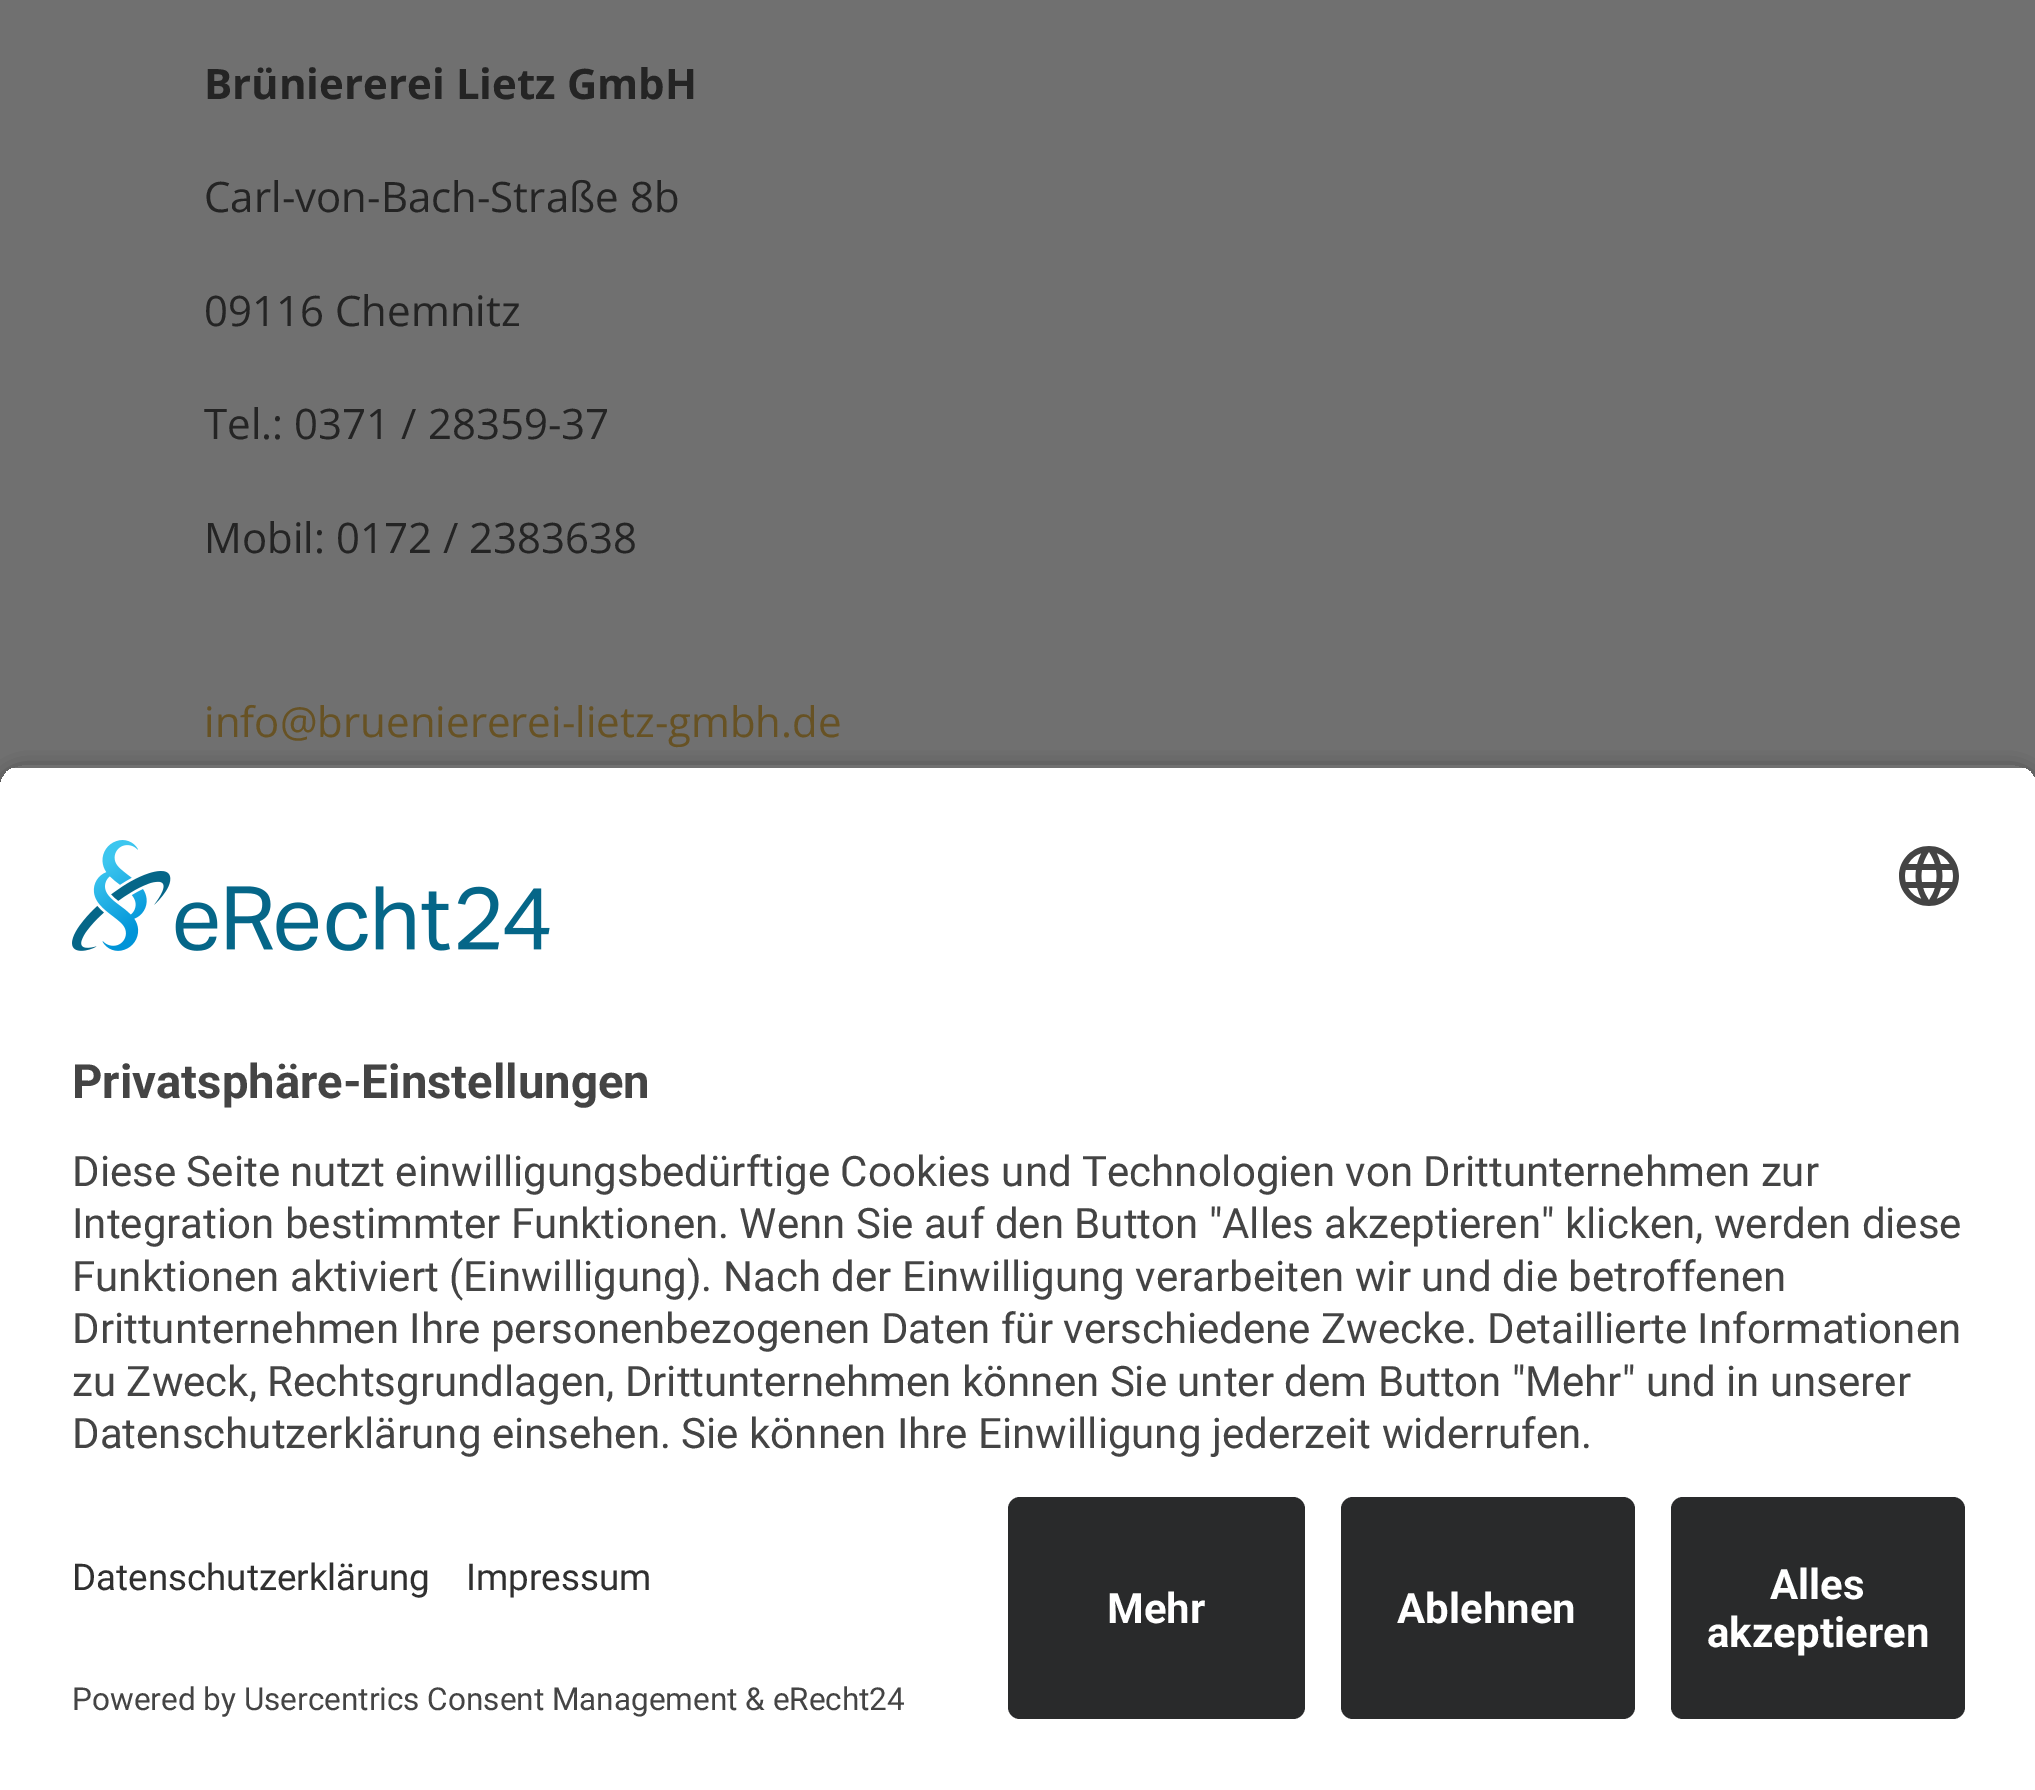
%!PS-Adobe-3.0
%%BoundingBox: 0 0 2035 1790
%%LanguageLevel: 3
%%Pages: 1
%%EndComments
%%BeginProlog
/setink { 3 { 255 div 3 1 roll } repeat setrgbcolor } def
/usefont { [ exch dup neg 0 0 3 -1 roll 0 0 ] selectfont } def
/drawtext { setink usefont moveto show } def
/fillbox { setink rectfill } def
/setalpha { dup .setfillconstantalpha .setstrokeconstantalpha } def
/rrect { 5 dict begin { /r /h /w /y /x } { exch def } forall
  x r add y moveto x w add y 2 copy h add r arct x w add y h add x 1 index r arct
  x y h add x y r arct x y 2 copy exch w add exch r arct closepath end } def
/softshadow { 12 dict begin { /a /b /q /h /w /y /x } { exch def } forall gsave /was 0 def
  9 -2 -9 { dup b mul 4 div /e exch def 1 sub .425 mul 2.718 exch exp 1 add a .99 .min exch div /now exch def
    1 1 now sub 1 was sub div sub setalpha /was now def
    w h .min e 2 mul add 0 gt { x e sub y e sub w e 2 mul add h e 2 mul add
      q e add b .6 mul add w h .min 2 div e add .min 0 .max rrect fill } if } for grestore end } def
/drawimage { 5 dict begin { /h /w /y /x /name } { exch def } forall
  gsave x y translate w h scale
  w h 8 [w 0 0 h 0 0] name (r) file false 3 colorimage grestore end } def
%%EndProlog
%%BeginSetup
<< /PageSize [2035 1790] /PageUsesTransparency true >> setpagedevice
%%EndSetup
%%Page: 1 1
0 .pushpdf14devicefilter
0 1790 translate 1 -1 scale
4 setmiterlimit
0 0 2035 1790 112 112 112 fillbox
(Brüniererei Lietz GmbH) 204 99 /OpenSans-Bold 42 36 36 36 drawtext
(Carl-von-Bach-Straße 8b) 204 212 /OpenSans-Regular 42 36 36 36 drawtext
(09116 Chemnitz) 204 326 /OpenSans-Regular 42 36 36 36 drawtext
(Tel.: 0371 / 28359-37) 204 439 /OpenSans-Regular 42 36 36 36 drawtext
(Mobil: 0172 / 2383638) 204 553 /OpenSans-Regular 42 36 36 36 drawtext
(info@brueniererei-lietz-gmbh.de) 204 737 /OpenSans-Regular 42 103 82 36 drawtext
gsave
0 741 moveto 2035 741 lineto 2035 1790 lineto 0 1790 lineto closepath 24 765 moveto 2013 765 lineto 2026.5 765 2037 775.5 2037 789 curveto 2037 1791 lineto 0 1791 lineto 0 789 lineto 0 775.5 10.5 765 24 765 curveto closepath eoclip newpath
0 0 0 setink
0 774 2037 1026 24 10.5 0.8 softshadow
grestore
gsave
24 765 moveto 2013 765 lineto 2026.5 765 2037 775.5 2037 789 curveto 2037 1473 lineto 0 1473 lineto 0 789 lineto 0 775.5 10.5 765 24 765 curveto closepath clip newpath
0 768 2035 705 255 255 255 fillbox
grestore
(assets/img1.rgb) 72 840 478 111 drawimage
(assets/img2.rgb) 1899 846 60 60 drawimage
(Privatsphäre-Einstellungen) 72 1098 /Roboto-Bold 47.25 68 68 68 drawtext
(Diese Seite nutzt einwilligungsbedürftige Cookies und Technologien von Drittunternehmen zur) 72 1186 /Roboto-Regular 42 68 68 68 drawtext
(Integration bestimmter Funktionen. Wenn Sie auf den Button "Alles akzeptieren" klicken, werden diese) 72 1238 /Roboto-Regular 42 68 68 68 drawtext
(Funktionen aktiviert \(Einwilligung\). Nach der Einwilligung verarbeiten wir und die betroffenen) 72 1291 /Roboto-Regular 42 68 68 68 drawtext
(Drittunternehmen Ihre personenbezogenen Daten für verschiedene Zwecke. Detaillierte Informationen) 72 1343 /Roboto-Regular 42 68 68 68 drawtext
(zu Zweck, Rechtsgrundlagen, Drittunternehmen können Sie unter dem Button "Mehr" und in unserer) 72 1396 /Roboto-Regular 42 68 68 68 drawtext
(Datenschutzerklärung einsehen. Sie können Ihre Einwilligung jederzeit widerrufen.) 72 1448 /Roboto-Regular 42 68 68 68 drawtext
0 1473 2035 317 255 255 255 fillbox
(Datenschutzerklärung) 72 1590 /Roboto-Regular 36.75 48 48 48 drawtext
(Impressum) 466 1590 /Roboto-Regular 36.75 48 48 48 drawtext
(Powered by Usercentrics Consent Management & eRecht24) 72 1710 /Roboto-Regular 31.5 68 68 68 drawtext
41 42 43 setink
1008 1497 297 222 12 rrect fill
(Mehr) 1107 1623 /Roboto-Bold 42 255 255 255 drawtext
41 42 43 setink
1341 1497 294 222 12 rrect fill
(Ablehnen) 1397 1623 /Roboto-Bold 42 255 255 255 drawtext
41 42 43 setink
1671 1497 294 222 12 rrect fill
(Alles) 1770 1599 /Roboto-Bold 42 255 255 255 drawtext
(akzeptieren) 1707 1647 /Roboto-Bold 42 255 255 255 drawtext
.poppdf14devicefilter showpage
%%EOF
